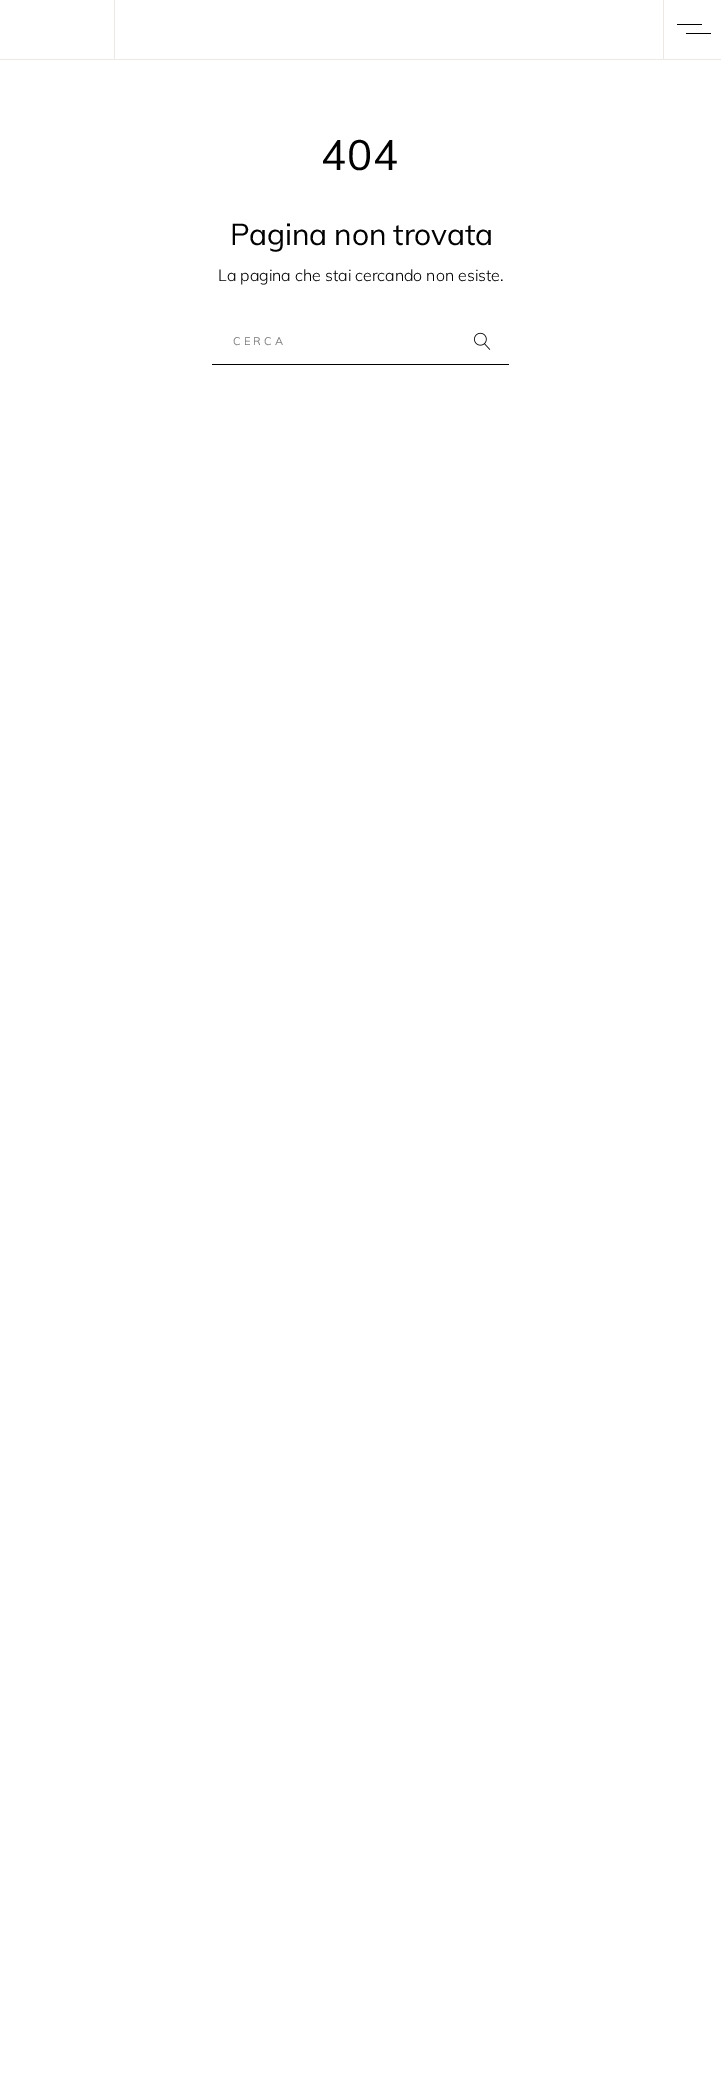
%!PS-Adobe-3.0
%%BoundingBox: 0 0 721 2078
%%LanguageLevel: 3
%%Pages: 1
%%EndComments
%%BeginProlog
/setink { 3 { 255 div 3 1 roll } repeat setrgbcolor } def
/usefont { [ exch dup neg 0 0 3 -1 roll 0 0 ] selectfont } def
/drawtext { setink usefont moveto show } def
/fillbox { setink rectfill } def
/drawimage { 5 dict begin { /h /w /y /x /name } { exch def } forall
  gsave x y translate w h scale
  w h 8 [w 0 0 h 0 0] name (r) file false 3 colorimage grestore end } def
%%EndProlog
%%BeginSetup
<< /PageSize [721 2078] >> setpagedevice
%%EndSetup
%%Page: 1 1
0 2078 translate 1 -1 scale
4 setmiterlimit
0 0 721 2078 255 255 255 fillbox
0 59 721 1 236 232 229 fillbox
114 0 1 59 236 232 229 fillbox
663 0 1 59 236 232 229 fillbox
677 24 25 1 0 0 0 fillbox
686 33 25 1 0 0 0 fillbox
/Muli-Regular 42 usefont
321 170 moveto 1 0 (404) ashow
/Muli-Regular 30 usefont
230 245 moveto -0.25 0 (Pagina non trovata) ashow
(La pagina che stai cercando non esiste.) 218 281 /Muli-Light 16 0 0 0 drawtext
212 364 297 1 0 0 0 fillbox
/Muli-Regular 11 usefont
117 117 117 setink
233 345 moveto 3.25 0 (CERCA) ashow
(assets/img1.rgb) 474 332 17 18 drawimage
showpage
%%EOF
